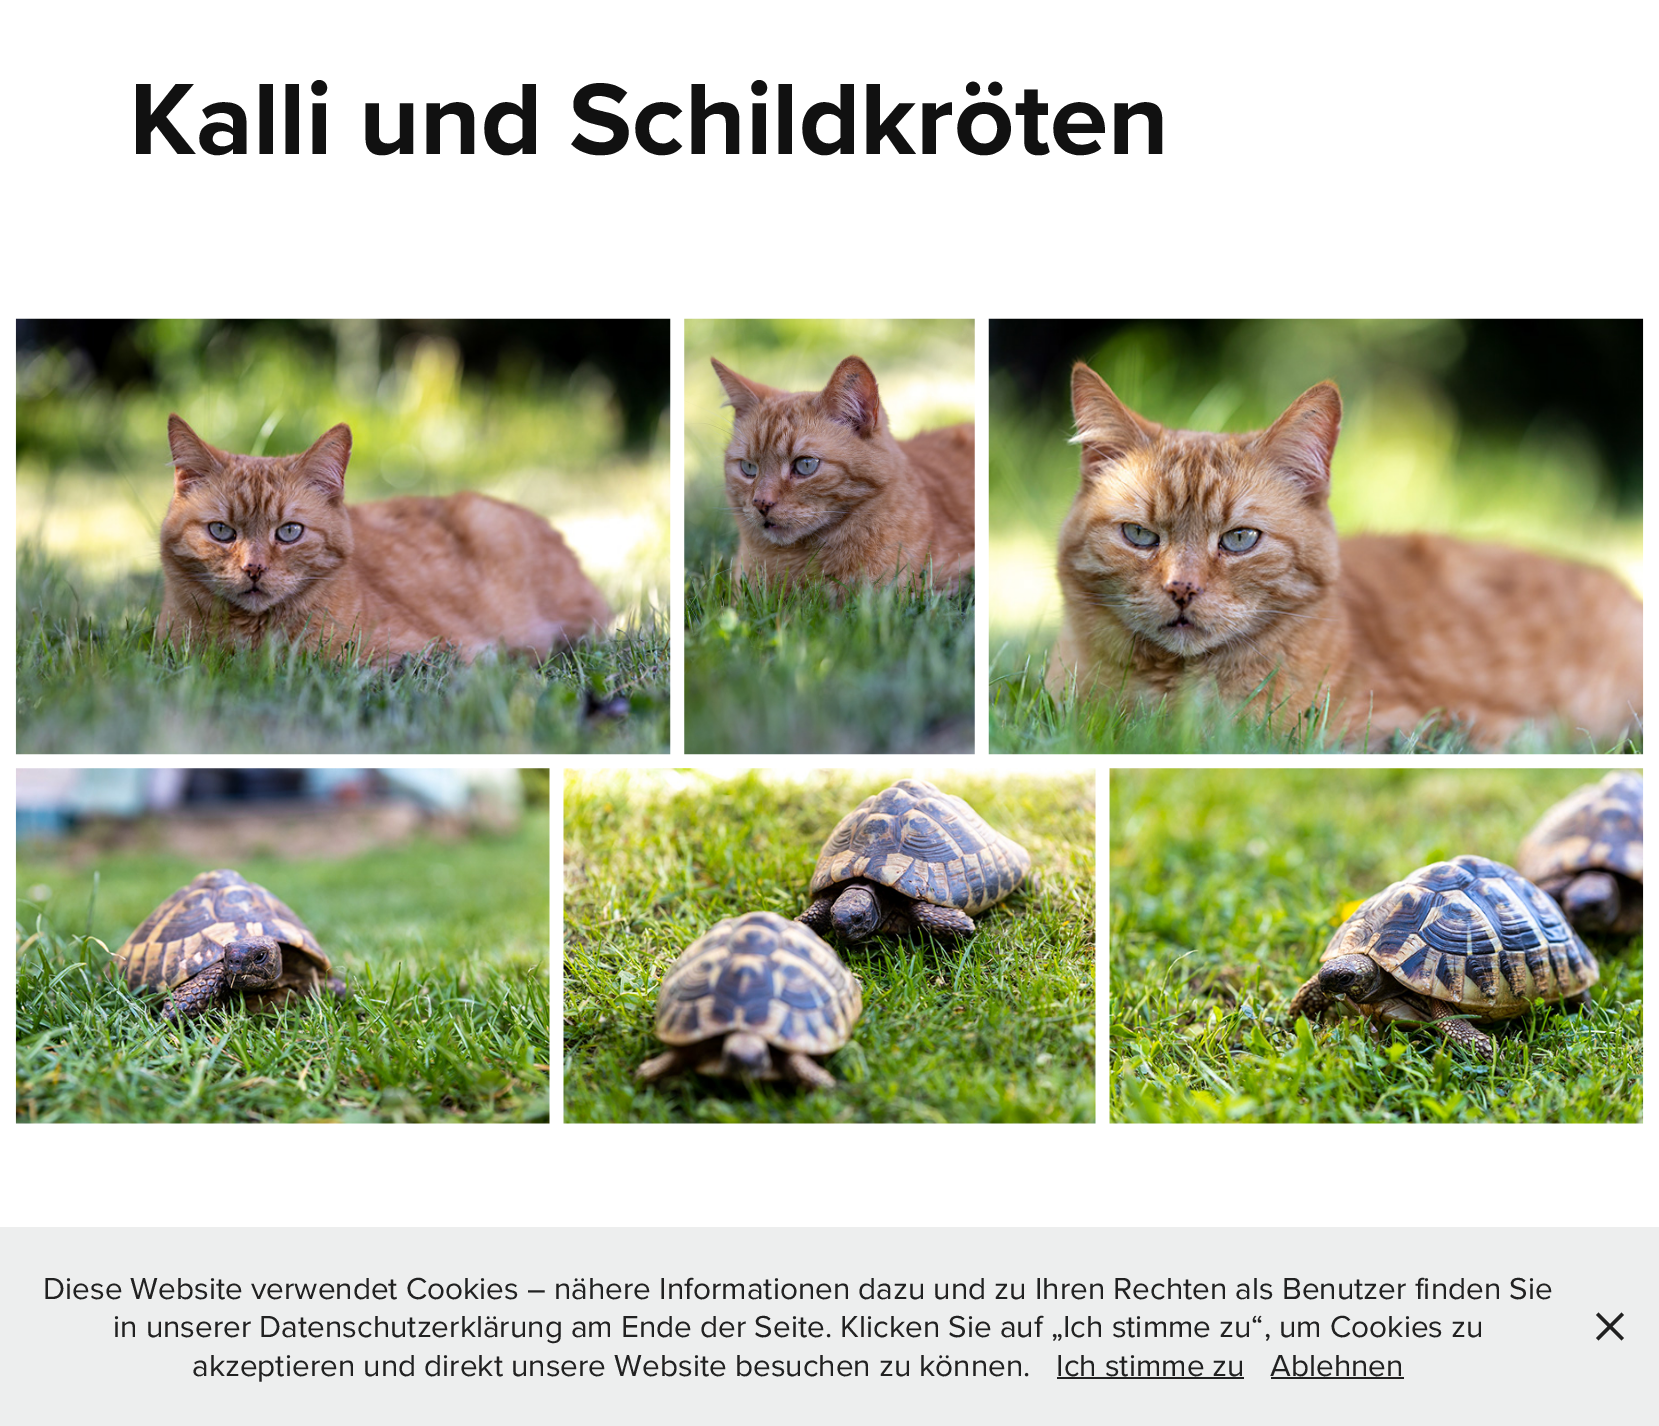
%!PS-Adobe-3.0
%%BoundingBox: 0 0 1659 1426
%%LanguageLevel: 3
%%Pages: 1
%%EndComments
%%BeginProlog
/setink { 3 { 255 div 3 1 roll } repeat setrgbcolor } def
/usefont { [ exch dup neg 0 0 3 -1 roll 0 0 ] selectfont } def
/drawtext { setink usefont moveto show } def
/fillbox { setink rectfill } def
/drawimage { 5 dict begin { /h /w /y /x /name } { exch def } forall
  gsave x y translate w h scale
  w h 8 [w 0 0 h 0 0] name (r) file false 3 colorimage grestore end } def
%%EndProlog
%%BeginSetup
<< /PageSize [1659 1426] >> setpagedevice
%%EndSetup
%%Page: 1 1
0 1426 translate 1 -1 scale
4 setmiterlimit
0 0 1659 1426 255 255 255 fillbox
(Kalli und Schildkröten) 129 154 /ProximaNova-Bold 105 17 17 17 drawtext
(assets/img1.rgb) 15 318 656 437 drawimage
(assets/img2.rgb) 684 318 291 437 drawimage
(assets/img3.rgb) 988 318 656 437 drawimage
(assets/img4.rgb) 15 768 535 356 drawimage
(assets/img5.rgb) 563 768 533 356 drawimage
(assets/img6.rgb) 1109 768 535 356 drawimage
0 1227 1659 199 237 238 238 fillbox
(Diese Website verwendet Cookies – nähere Informationen dazu und zu Ihren Rechten als Benutzer finden Sie) 43 1299 /ProximaNova-Regular 31.5 33 33 33 drawtext
(in unserer Datenschutzerklärung am Ende der Seite. Klicken Sie auf „Ich stimme zu“, um Cookies zu) 113 1337 /ProximaNova-Regular 31.5 33 33 33 drawtext
(akzeptieren und direkt unsere Website besuchen zu können.) 192 1376 /ProximaNova-Regular 31.5 33 33 33 drawtext
(Ich stimme zu) 1056 1376 /ProximaNova-Regular 31.5 33 33 33 drawtext
1057 1377 187 2 33 33 33 fillbox
(Ablehnen) 1270 1376 /ProximaNova-Regular 31.5 33 33 33 drawtext
1271 1377 133 2 33 33 33 fillbox
1596 1315 moveto 1598.5 1312.5 lineto 1624 1338 lineto 1621.5 1340.5 lineto closepath fill
1598.5 1340.5 moveto 1596 1338 lineto 1621.5 1312.5 lineto 1624 1315 lineto closepath fill
showpage
%%EOF
